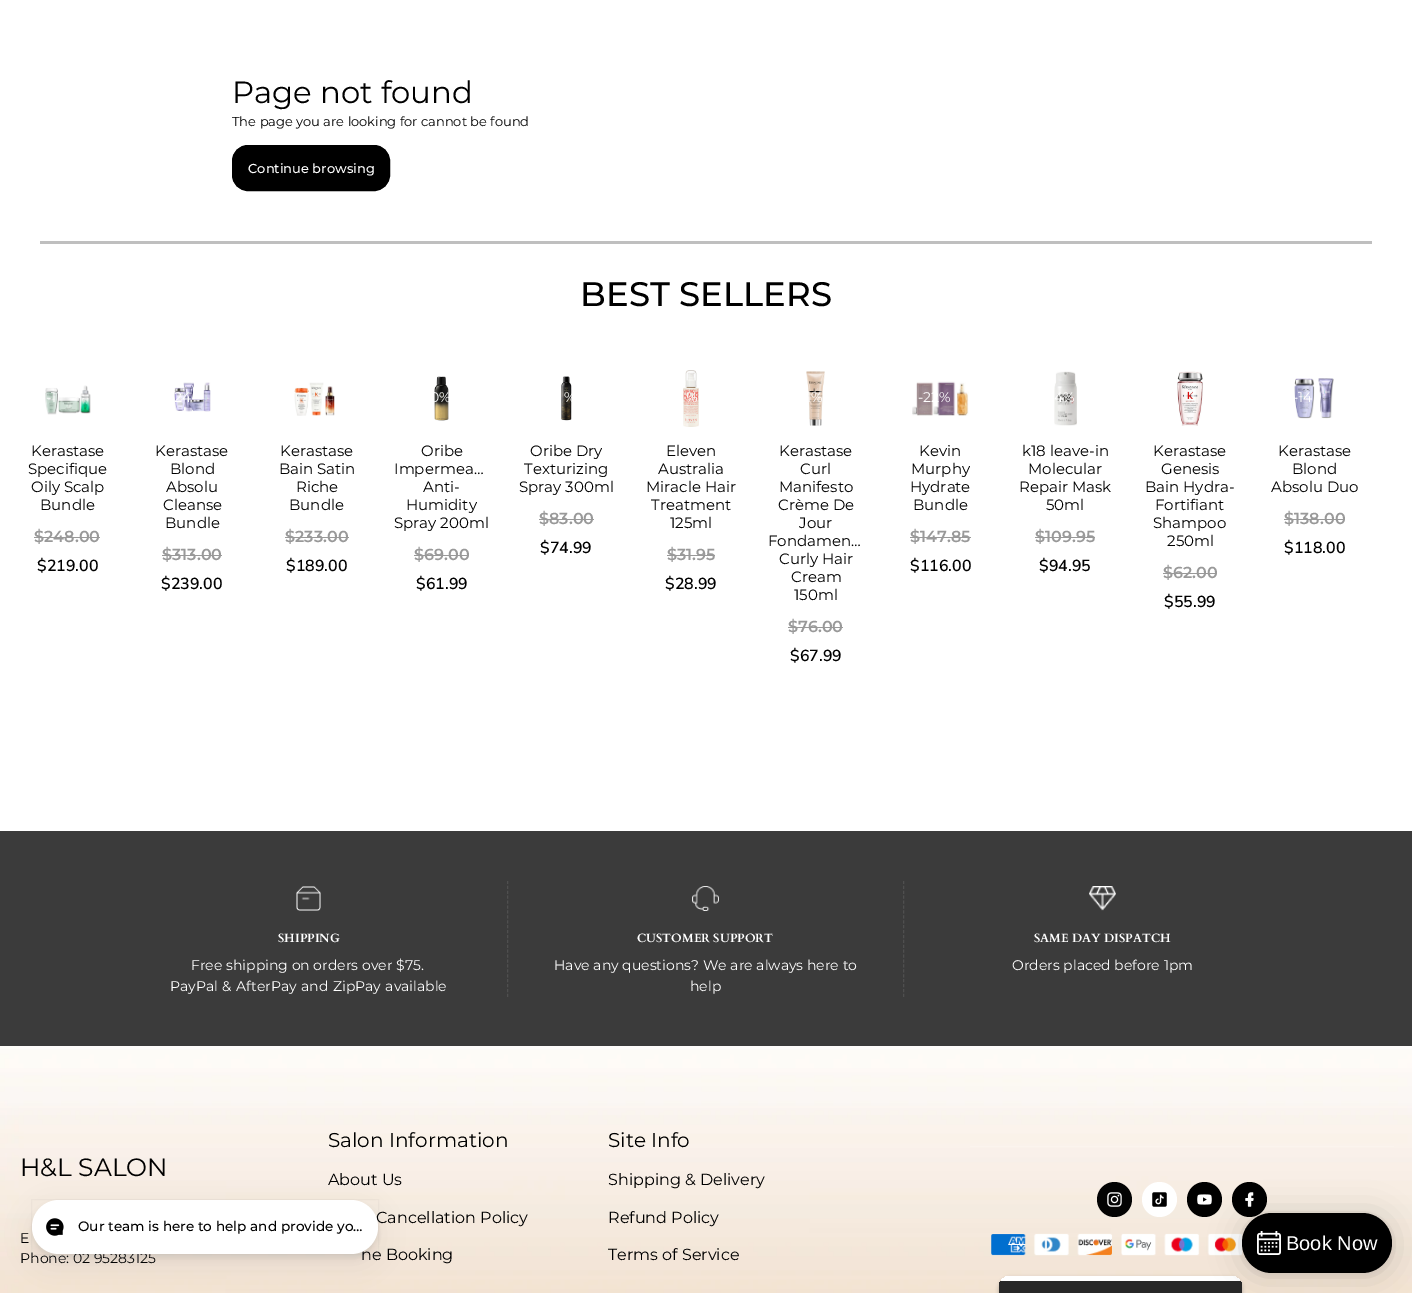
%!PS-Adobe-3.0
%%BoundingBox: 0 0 1412 1293
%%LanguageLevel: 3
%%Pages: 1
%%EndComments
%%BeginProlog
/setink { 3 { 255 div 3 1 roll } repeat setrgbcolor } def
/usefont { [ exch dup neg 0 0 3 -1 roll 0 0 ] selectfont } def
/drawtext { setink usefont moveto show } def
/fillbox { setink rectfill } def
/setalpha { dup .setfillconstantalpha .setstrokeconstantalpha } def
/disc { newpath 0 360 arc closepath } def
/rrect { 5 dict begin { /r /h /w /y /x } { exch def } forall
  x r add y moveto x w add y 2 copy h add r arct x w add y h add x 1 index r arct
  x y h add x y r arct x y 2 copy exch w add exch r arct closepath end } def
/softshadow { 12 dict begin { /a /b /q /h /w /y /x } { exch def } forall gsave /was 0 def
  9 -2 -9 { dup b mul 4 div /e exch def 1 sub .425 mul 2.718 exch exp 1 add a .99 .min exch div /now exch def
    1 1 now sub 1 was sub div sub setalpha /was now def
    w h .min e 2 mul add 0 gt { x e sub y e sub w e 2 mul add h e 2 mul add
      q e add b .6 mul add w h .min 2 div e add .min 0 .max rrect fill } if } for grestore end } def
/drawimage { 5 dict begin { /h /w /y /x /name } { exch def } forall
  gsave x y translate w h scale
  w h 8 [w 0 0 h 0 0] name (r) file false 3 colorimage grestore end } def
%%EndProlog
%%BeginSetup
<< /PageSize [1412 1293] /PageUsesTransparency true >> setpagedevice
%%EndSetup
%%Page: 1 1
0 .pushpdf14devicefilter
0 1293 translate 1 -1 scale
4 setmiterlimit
0 0 1412 1293 255 255 255 fillbox
(Page not found) 232 103 /Montserrat-Regular 30.75 0 0 0 drawtext
(The page you are looking for cannot be found) 232 126 /Montserrat-Regular 13 0 0 0 drawtext
232.5 145.5 157 45 15.5 rrect gsave fill grestore
stroke
(Continue browsing) 248 173 /Montserrat-Medium 13 255 255 255 drawtext
40 241 1332 3 191 191 191 fillbox
(BEST SELLERS) 580 306 /Montserrat-Medium 34 0 0 0 drawtext
(assets/img1.rgb) 45 385 46 30 drawimage
(-1) 46 402 /Montserrat-Regular 14 255 255 255 drawtext
(Kerastase) 31 456 /Montserrat-Regular 15 0 0 0 drawtext
(Specifique) 28 474 /Montserrat-Regular 15 0 0 0 drawtext
(Oily Scalp) 31 492 /Montserrat-Regular 15 0 0 0 drawtext
(Bundle) 40 510 /Montserrat-Regular 15 0 0 0 drawtext
($248.00) 34 542 /Montserrat-SemiBold 16 153 153 153 drawtext
34 537 66 1 153 153 153 fillbox
($219.00) 37 571 /NunitoSans-SemiBold 16 0 0 0 drawtext
(assets/img2.rgb) 174 382 37 30 drawimage
(24) 174 402 /Montserrat-Regular 14 255 255 255 drawtext
(Kerastase) 155 456 /Montserrat-Regular 15 0 0 0 drawtext
(Blond) 170 474 /Montserrat-Regular 15 0 0 0 drawtext
(Absolu) 166 492 /Montserrat-Regular 15 0 0 0 drawtext
(Cleanse) 163 510 /Montserrat-Regular 15 0 0 0 drawtext
(Bundle) 165 528 /Montserrat-Regular 15 0 0 0 drawtext
($313.00) 162 560 /Montserrat-SemiBold 16 153 153 153 drawtext
162 555 60 1 153 153 153 fillbox
($239.00) 161 589 /NunitoSans-SemiBold 16 0 0 0 drawtext
(assets/img3.rgb) 294 382 41 34 drawimage
(Kerastase) 280 456 /Montserrat-Regular 15 0 0 0 drawtext
(Bain Satin) 279 474 /Montserrat-Regular 15 0 0 0 drawtext
(Riche) 296 492 /Montserrat-Regular 15 0 0 0 drawtext
(Bundle) 289 510 /Montserrat-Regular 15 0 0 0 drawtext
($233.00) 285 542 /Montserrat-SemiBold 16 153 153 153 drawtext
285 537 64 1 153 153 153 fillbox
($189.00) 286 571 /NunitoSans-SemiBold 16 0 0 0 drawtext
(assets/img4.rgb) 434 376 15 45 drawimage
(0%) 430 402 /Montserrat-Regular 14 255 255 255 drawtext
(Oribe) 421 456 /Montserrat-Regular 15 0 0 0 drawtext
(Impermea…) 394 474 /Montserrat-Regular 15 0 0 0 drawtext
(Anti-) 423 492 /Montserrat-Regular 15 0 0 0 drawtext
(Humidity) 406 510 /Montserrat-Regular 15 0 0 0 drawtext
(Spray 200ml) 394 528 /Montserrat-Regular 15 0 0 0 drawtext
($69.00) 414 560 /Montserrat-SemiBold 16 153 153 153 drawtext
414 555 55 1 153 153 153 fillbox
($61.99) 416 589 /NunitoSans-SemiBold 16 0 0 0 drawtext
(assets/img5.rgb) 561 376 11 45 drawimage
(%) 564 402 /Montserrat-Regular 14 255 255 255 drawtext
(Oribe Dry) 530 456 /Montserrat-Regular 15 0 0 0 drawtext
(Texturizing) 524 474 /Montserrat-Regular 15 0 0 0 drawtext
(Spray 300ml) 519 492 /Montserrat-Regular 15 0 0 0 drawtext
($83.00) 539 524 /Montserrat-SemiBold 16 153 153 153 drawtext
539 519 55 1 153 153 153 fillbox
($74.99) 540 553 /NunitoSans-SemiBold 16 0 0 0 drawtext
(assets/img6.rgb) 683 370 16 57 drawimage
(%) 686 402 /Montserrat-Regular 14 255 255 255 drawtext
(Eleven) 666 456 /Montserrat-Regular 15 0 0 0 drawtext
(Australia) 658 474 /Montserrat-Regular 15 0 0 0 drawtext
(Miracle Hair) 646 492 /Montserrat-Regular 15 0 0 0 drawtext
(Treatment) 651 510 /Montserrat-Regular 15 0 0 0 drawtext
(125ml) 670 528 /Montserrat-Regular 15 0 0 0 drawtext
($31.95) 667 560 /Montserrat-SemiBold 16 153 153 153 drawtext
667 555 48 1 153 153 153 fillbox
($28.99) 665 589 /NunitoSans-SemiBold 16 0 0 0 drawtext
(assets/img7.rgb) 806 371 19 55 drawimage
(1%) 806 402 /Montserrat-Regular 14 255 255 255 drawtext
(Kerastase) 779 456 /Montserrat-Regular 15 0 0 0 drawtext
(Curl) 800 474 /Montserrat-Regular 15 0 0 0 drawtext
(Manifesto) 779 492 /Montserrat-Regular 15 0 0 0 drawtext
(Crème De) 778 510 /Montserrat-Regular 15 0 0 0 drawtext
(Jour) 799 528 /Montserrat-Regular 15 0 0 0 drawtext
(Fondamen…) 768 546 /Montserrat-Regular 15 0 0 0 drawtext
(Curly Hair) 779 564 /Montserrat-Regular 15 0 0 0 drawtext
(Cream) 791 582 /Montserrat-Regular 15 0 0 0 drawtext
(150ml) 794 600 /Montserrat-Regular 15 0 0 0 drawtext
($76.00) 788 632 /Montserrat-SemiBold 16 153 153 153 drawtext
788 627 55 1 153 153 153 fillbox
($67.99) 790 661 /NunitoSans-SemiBold 16 0 0 0 drawtext
(assets/img8.rgb) 912 381 57 35 drawimage
(-22%) 918 402 /Montserrat-Regular 14 255 255 255 drawtext
(Kevin) 919 456 /Montserrat-Regular 15 0 0 0 drawtext
(Murphy) 911 474 /Montserrat-Regular 15 0 0 0 drawtext
(Hydrate) 910 492 /Montserrat-Regular 15 0 0 0 drawtext
(Bundle) 913 510 /Montserrat-Regular 15 0 0 0 drawtext
($147.85) 910 542 /Montserrat-SemiBold 16 153 153 153 drawtext
910 537 61 1 153 153 153 fillbox
($116.00) 910 571 /NunitoSans-SemiBold 16 0 0 0 drawtext
(assets/img9.rgb) 1054 371 23 55 drawimage
(4%) 1054 402 /Montserrat-Regular 14 255 255 255 drawtext
(k18 leave-in) 1022 456 /Montserrat-Regular 15 0 0 0 drawtext
(Molecular) 1028 474 /Montserrat-Regular 15 0 0 0 drawtext
(Repair Mask) 1019 492 /Montserrat-Regular 15 0 0 0 drawtext
(50ml) 1046 510 /Montserrat-Regular 15 0 0 0 drawtext
($109.95) 1035 542 /Montserrat-SemiBold 16 153 153 153 drawtext
1035 537 60 1 153 153 153 fillbox
($94.95) 1039 571 /NunitoSans-SemiBold 16 0 0 0 drawtext
(assets/img10.rgb) 1177 371 26 55 drawimage
(Kerastase) 1153 456 /Montserrat-Regular 15 0 0 0 drawtext
(Genesis) 1161 474 /Montserrat-Regular 15 0 0 0 drawtext
(Bain Hydra-) 1145 492 /Montserrat-Regular 15 0 0 0 drawtext
(Fortifiant) 1155 510 /Montserrat-Regular 15 0 0 0 drawtext
(Shampoo) 1153 528 /Montserrat-Regular 15 0 0 0 drawtext
(250ml) 1167 546 /Montserrat-Regular 15 0 0 0 drawtext
($62.00) 1163 578 /Montserrat-SemiBold 16 153 153 153 drawtext
1163 573 54 1 153 153 153 fillbox
($55.99) 1164 607 /NunitoSans-SemiBold 16 0 0 0 drawtext
(assets/img11.rgb) 1294 378 40 41 drawimage
(-14) 1293 402 /Montserrat-Regular 14 255 255 255 drawtext
(Kerastase) 1278 456 /Montserrat-Regular 15 0 0 0 drawtext
(Blond) 1292 474 /Montserrat-Regular 15 0 0 0 drawtext
(Absolu Duo) 1271 492 /Montserrat-Regular 15 0 0 0 drawtext
($138.00) 1284 524 /Montserrat-SemiBold 16 153 153 153 drawtext
1284 519 61 1 153 153 153 fillbox
($118.00) 1284 553 /NunitoSans-SemiBold 16 0 0 0 drawtext
0 831 1412 215 59 59 59 fillbox
79 79 79 setink
[3 1.91] 0 setdash
507.5 881 moveto 507.5 997 lineto stroke
(assets/img12.rgb) 296 886 25 25 drawimage
(SHIPPING) 278 942 /Cardo-Bold 12 255 255 255 drawtext
(Free shipping on orders over $75.) 191 970 /Montserrat-Regular 14 255 255 255 drawtext
170 991 moveto 0.75 0 32 (PayPal & AfterPay and ZipPay available) widthshow
79 79 79 setink
903.5 881 moveto 903.5 997 lineto stroke
(assets/img13.rgb) 692 886 27 25 drawimage
(CUSTOMER SUPPORT) 637 942 /Cardo-Bold 12 255 255 255 drawtext
(Have any questions? We are always here to) 554 970 /Montserrat-Regular 14 255 255 255 drawtext
(help) 690 991 /Montserrat-Regular 14 255 255 255 drawtext
(assets/img14.rgb) 1089 886 27 25 drawimage
(SAME DAY DISPATCH) 1034 942 /Cardo-Bold 12 255 255 255 drawtext
(Orders placed before 1pm) 1012 970 /Montserrat-Regular 14 255 255 255 drawtext
(assets/img15.rgb) 0 1046 1412 247 drawimage
(H&L SALON) 20 1176 /Montserrat-Regular 25 0 0 0 drawtext
(E) 20 1243 /Montserrat-Regular 14 0 0 0 drawtext
(Phone: 02 95283125) 20 1263 /Montserrat-Regular 14 0 0 0 drawtext
(Salon Information) 328 1147 /Montserrat-Regular 20 0 0 0 drawtext
(About Us) 328 1185 /Montserrat-Regular 16 0 0 0 drawtext
(Cancellation Policy) 376 1223 /Montserrat-Regular 16 0 0 0 drawtext
(ne Booking) 361 1260 /Montserrat-Regular 16 0 0 0 drawtext
(Site Info) 608 1147 /Montserrat-Regular 20 0 0 0 drawtext
(Shipping & Delivery) 608 1185 /Montserrat-Regular 16 0 0 0 drawtext
(Refund Policy) 608 1223 /Montserrat-Regular 16 0 0 0 drawtext
(Terms of Service) 608 1260 /Montserrat-Regular 16 0 0 0 drawtext
970 1146 424 1 251 244 238 fillbox
3 3 3 setink
1114.5 1199.5 17.5 disc fill
(assets/img16.rgb) 1107 1192 15 15 drawimage
255 255 255 setink
1159.5 1199.5 17.5 disc fill
(assets/img17.rgb) 1152 1192 15 15 drawimage
0 0 0 setink
1204.5 1199.5 17.5 disc fill
(assets/img18.rgb) 1197 1194 15 11 drawimage
1249.5 1199.5 17.5 disc fill
(assets/img19.rgb) 1245 1192 9 15 drawimage
(assets/img20.rgb) 991 1233 252 23 drawimage
999 1278 243 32 11 2 0.26 softshadow
gsave
999 1276 243 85 11 rrect clip newpath
999 1276 243 5 255 255 255 fillbox
40 40 40 setink
999 1281 moveto 1242 1281 lineto 1242 1293 lineto 1242 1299 1237 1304 1231 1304 curveto 1010 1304 lineto 1004 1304 999 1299 999 1293 curveto closepath fill
grestore
55 63 71 setink
32 1208 346 55 27.5 12.5 0.08 softshadow
32 1204 346 55 27.5 2 0.08 softshadow
0.04 setalpha
[] 0 setdash
31.5 1199.5 347 55 rectstroke
1 setalpha
255 255 255 setink
32 1200 346 54 27 rrect fill
(assets/img21.rgb) 46 1218 18 18 drawimage
(Our team is here to help and provide yo…) 78 1231 /Montserrat-Medium 13.65 0 0 0 drawtext
1242 1215 150 60 30 16 0.16 softshadow
1242 1214 150 60 30 3 0.06 softshadow
1242 1213 150 60 30 rrect fill
(assets/img22.rgb) 1257 1231 24 24 drawimage
(Book Now) 1286 1250 /LiberationSans-Regular 20 255 255 255 drawtext
.poppdf14devicefilter showpage
%%EOF
